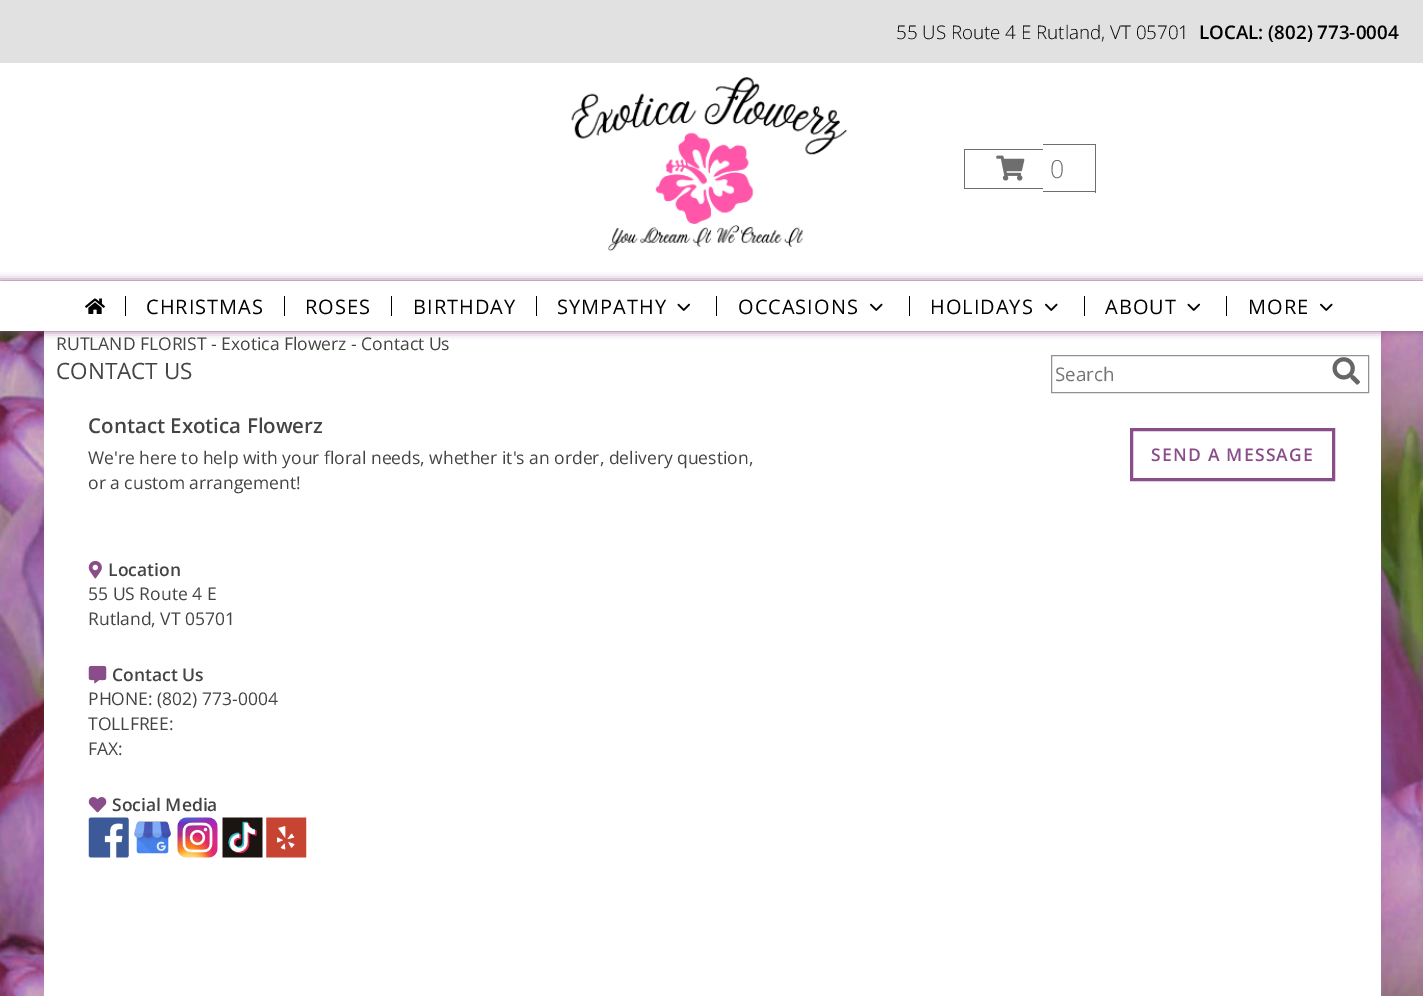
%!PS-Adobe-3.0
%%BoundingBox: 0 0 1423 996
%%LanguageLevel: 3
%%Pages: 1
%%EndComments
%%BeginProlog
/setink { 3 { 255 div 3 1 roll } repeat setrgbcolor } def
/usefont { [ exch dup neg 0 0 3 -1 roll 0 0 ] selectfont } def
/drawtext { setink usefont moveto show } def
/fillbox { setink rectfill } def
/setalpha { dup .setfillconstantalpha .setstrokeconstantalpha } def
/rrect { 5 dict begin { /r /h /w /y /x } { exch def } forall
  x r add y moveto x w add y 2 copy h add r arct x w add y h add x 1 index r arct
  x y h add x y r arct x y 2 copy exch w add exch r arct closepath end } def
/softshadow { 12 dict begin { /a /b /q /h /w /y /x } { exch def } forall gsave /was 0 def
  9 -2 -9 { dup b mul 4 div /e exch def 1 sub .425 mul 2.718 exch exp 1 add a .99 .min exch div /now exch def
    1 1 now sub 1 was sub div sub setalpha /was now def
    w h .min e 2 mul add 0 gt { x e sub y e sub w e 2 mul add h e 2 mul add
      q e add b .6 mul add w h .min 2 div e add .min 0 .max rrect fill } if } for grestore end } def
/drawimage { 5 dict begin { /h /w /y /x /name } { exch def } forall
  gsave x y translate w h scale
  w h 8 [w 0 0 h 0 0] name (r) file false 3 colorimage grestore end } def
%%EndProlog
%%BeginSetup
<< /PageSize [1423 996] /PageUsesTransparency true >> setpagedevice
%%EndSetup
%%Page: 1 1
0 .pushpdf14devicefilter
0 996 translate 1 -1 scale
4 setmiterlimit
0 0 1423 996 255 255 255 fillbox
(assets/img1.rgb) 0 331 1423 665 drawimage
44 331 1337 665 255 255 255 fillbox
0 0 1423 63 225 225 225 fillbox
(55 US Route 4 E Rutland, VT 05701) 896 39 /OpenSans-Light 18.75 0 0 0 drawtext
(LOCAL: \(802\) 773-0004) 1199 39 /OpenSans-SemiBold 18.75 0 0 0 drawtext
(assets/img2.rgb) 571 77 277 175 drawimage
964 149 79 1 110 110 110 fillbox
964 188 79 1 110 110 110 fillbox
964 149 1 40 110 110 110 fillbox
1043 144 53 1 110 110 110 fillbox
1043 191 7 1 110 110 110 fillbox
1095 144 1 49 110 110 110 fillbox
1050 191 46 1 110 110 110 fillbox
(assets/img3.rgb) 996 155 29 26 drawimage
(0) 1050 178 /OpenSans-Light 25 110 110 110 drawtext
137 77 137 setink
0 281 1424 50 0 4 1 softshadow
0 281 1423 50 255 255 255 fillbox
(assets/img4.rgb) 85 298 20 16 drawimage
125 296 1 20 0 0 0 fillbox
/OpenSans-Regular 20 usefont
146 314 moveto 1 0 (CHRISTMAS) ashow
284 296 1 20 0 0 0 fillbox
305 314 moveto 1 0 (ROSES) ashow
391 296 1 20 0 0 0 fillbox
413 314 moveto 1 0 (BIRTHDAY) ashow
536 296 1 20 0 0 0 fillbox
557 314 moveto 1 0 (SYMPATHY) ashow
(assets/img5.rgb) 677 303 13 8 drawimage
716 296 1 20 0 0 0 fillbox
738 314 moveto 1 0 (OCCASIONS) ashow
(assets/img6.rgb) 870 303 13 8 drawimage
909 296 1 20 0 0 0 fillbox
930 314 moveto 1 0 (HOLIDAYS) ashow
(assets/img6.rgb) 1045 303 13 8 drawimage
1084 296 1 20 0 0 0 fillbox
1105 314 moveto 1 0 (ABOUT) ashow
(assets/img5.rgb) 1187 303 13 8 drawimage
1226 296 1 20 0 0 0 fillbox
1248 314 moveto 1 0 (MORE) ashow
(assets/img6.rgb) 1320 303 13 8 drawimage
(RUTLAND FLORIST - Exotica Flowerz - Contact Us) 56 350 /OpenSans-Regular 17.5 68 68 68 drawtext
(CONTACT US) 56 379 /OpenSans-Regular 22.5 68 68 68 drawtext
145 145 145 setink
1051.5 355.5 317 37 rectstroke
(Search) 1055 381 /OpenSans-Regular 18.75 117 117 117 drawtext
(assets/img7.rgb) 1332 357 28 28 drawimage
(Contact Exotica Flowerz) 88 433 /OpenSans-SemiBold 20.5 68 68 68 drawtext
(We're here to help with your floral needs, whether it's an order, delivery question,) 88 464 /OpenSans-Regular 17.5 68 68 68 drawtext
(or a custom arrangement!) 88 489 /OpenSans-Regular 17.5 68 68 68 drawtext
137 77 137 setink
3 setlinewidth
1131.5 429.5 202 50 rectstroke
/OpenSans-SemiBold 17.5 usefont
1151 461 moveto 1.25 0 (SEND A MESSAGE) ashow
(assets/img8.rgb) 88 560 14 19 drawimage
(Location) 108 576 /OpenSans-SemiBold 17.5 68 68 68 drawtext
(55 US Route 4 E) 88 600 /OpenSans-Regular 17.5 68 68 68 drawtext
(Rutland, VT 05701) 88 625 /OpenSans-Regular 17.5 68 68 68 drawtext
(assets/img9.rgb) 88 665 19 19 drawimage
(Contact Us) 112 681 /OpenSans-SemiBold 17.5 68 68 68 drawtext
(PHONE: \(802\) 773-0004) 88 705 /OpenSans-Regular 17.5 68 68 68 drawtext
(TOLLFREE:) 88 730 /OpenSans-Regular 17.5 68 68 68 drawtext
(FAX:) 88 755 /OpenSans-Regular 17.5 68 68 68 drawtext
(assets/img10.rgb) 88 797 19 16 drawimage
(Social Media) 112 811 /OpenSans-SemiBold 17.5 68 68 68 drawtext
(assets/img11.rgb) 88 817 41 41 drawimage
(assets/img12.rgb) 134 821 38 33 drawimage
(assets/img13.rgb) 177 817 41 41 drawimage
(assets/img14.rgb) 222 817 41 41 drawimage
(assets/img15.rgb) 266 817 41 41 drawimage
.poppdf14devicefilter showpage
%%EOF
